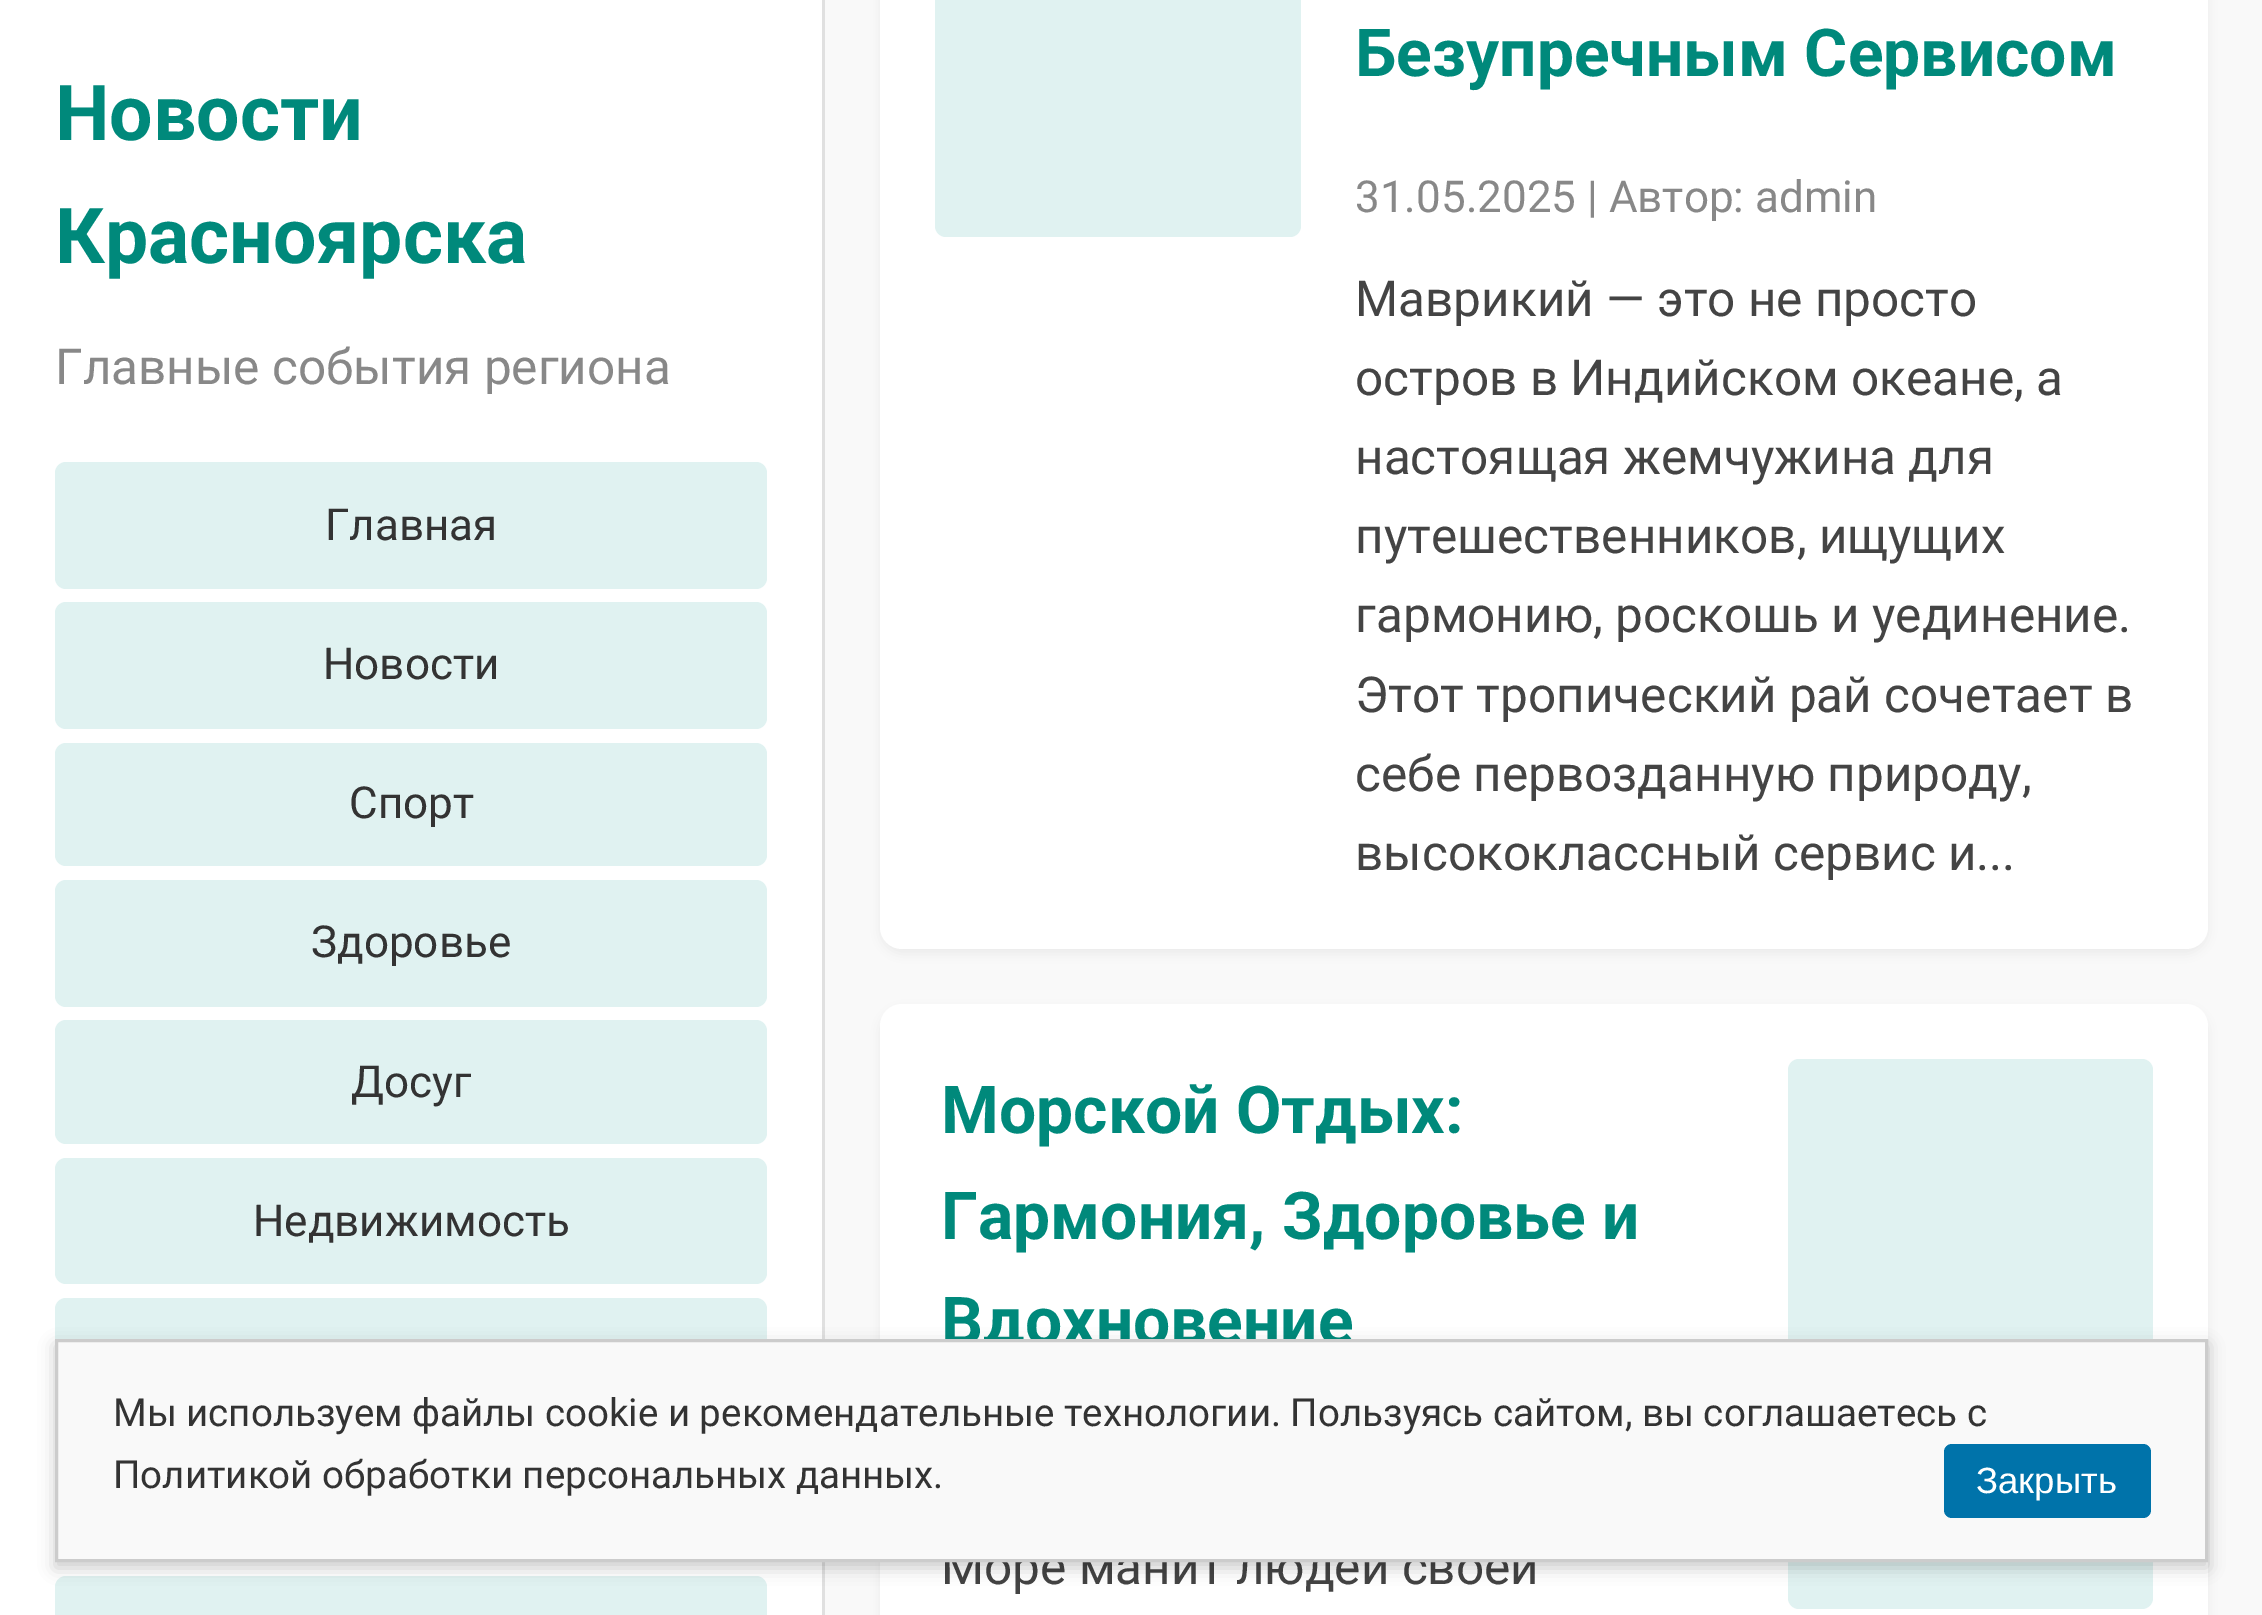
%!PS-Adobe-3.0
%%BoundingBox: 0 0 2262 1615
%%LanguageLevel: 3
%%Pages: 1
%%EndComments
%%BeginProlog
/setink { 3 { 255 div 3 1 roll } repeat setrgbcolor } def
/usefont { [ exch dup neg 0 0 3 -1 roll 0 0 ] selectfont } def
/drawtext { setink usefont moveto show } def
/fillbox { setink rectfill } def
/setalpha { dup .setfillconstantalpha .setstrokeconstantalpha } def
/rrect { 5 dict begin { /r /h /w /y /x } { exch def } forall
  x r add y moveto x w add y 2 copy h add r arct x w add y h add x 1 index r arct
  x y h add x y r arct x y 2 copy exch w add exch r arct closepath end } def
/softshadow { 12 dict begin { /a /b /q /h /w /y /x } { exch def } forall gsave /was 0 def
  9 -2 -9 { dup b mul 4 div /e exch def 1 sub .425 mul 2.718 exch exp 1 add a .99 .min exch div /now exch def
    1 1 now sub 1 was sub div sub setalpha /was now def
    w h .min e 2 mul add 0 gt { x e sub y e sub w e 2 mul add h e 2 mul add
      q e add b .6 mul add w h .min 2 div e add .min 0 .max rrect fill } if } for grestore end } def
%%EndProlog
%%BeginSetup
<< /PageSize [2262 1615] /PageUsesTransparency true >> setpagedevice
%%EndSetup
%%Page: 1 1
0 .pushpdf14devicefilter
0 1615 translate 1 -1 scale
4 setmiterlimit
0 0 2262 1615 249 249 249 fillbox
0 0 822 1615 255 255 255 fillbox
822 0 3 1615 224 224 224 fillbox
(Новости) 55 140 /Roboto-Bold 77 0 137 123 drawtext
(Красноярска) 55 263 /Roboto-Bold 77 0 137 123 drawtext
(Главные события региона) 55 384 /Roboto-Regular 49.5 136 136 136 drawtext
224 242 241 setink
55 462 712 127 11 rrect fill
(Главная) 325 540 /Roboto-Regular 44 51 51 51 drawtext
224 242 241 setink
55 602 712 127 11 rrect fill
(Новости) 323 679 /Roboto-Regular 44 51 51 51 drawtext
224 242 241 setink
55 743 712 123 11 rrect fill
(Спорт) 349 818 /Roboto-Regular 44 51 51 51 drawtext
224 242 241 setink
55 880 712 127 11 rrect fill
(Здоровье) 311 957 /Roboto-Regular 44 51 51 51 drawtext
224 242 241 setink
55 1020 712 124 11 rrect fill
(Досуг) 351 1097 /Roboto-Regular 44 51 51 51 drawtext
224 242 241 setink
55 1158 712 126 11 rrect fill
(Недвижимость) 253 1236 /Roboto-Regular 44 51 51 51 drawtext
224 242 241 setink
55 1298 712 127 11 rrect fill
66 1576 moveto 756 1576 lineto 762 1576 767 1581 767 1587 curveto 767 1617 lineto 55 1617 lineto 55 1587 lineto 55 1581 60 1576 66 1576 curveto closepath fill
0 0 0 setink
880 -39 1328 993 22 5.5 0.05 softshadow
255 255 255 setink
880 -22 1328 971 22 rrect fill
224 242 241 setink
935 -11 366 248 11 rrect fill
(Безупречным Сервисом) 1355 76 /Roboto-Bold 66 0 137 123 drawtext
(31.05.2025 | Автор: admin) 1355 212 /Roboto-Regular 44 136 136 136 drawtext
(Маврикий — это не просто) 1355 316 /Roboto-Regular 49.5 68 68 68 drawtext
(остров в Индийском океане, а) 1355 395 /Roboto-Regular 49.5 68 68 68 drawtext
(настоящая жемчужина для) 1355 474 /Roboto-Regular 49.5 68 68 68 drawtext
(путешественников, ищущих) 1355 553 /Roboto-Regular 49.5 68 68 68 drawtext
(гармонию, роскошь и уединение.) 1355 632 /Roboto-Regular 49.5 68 68 68 drawtext
(Этот тропический рай сочетает в) 1355 712 /Roboto-Regular 49.5 68 68 68 drawtext
(себе первозданную природу,) 1355 791 /Roboto-Regular 49.5 68 68 68 drawtext
(высококлассный сервис и...) 1355 870 /Roboto-Regular 49.5 68 68 68 drawtext
0 0 0 setink
880 1009 1328 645 22 5.5 0.05 softshadow
255 255 255 setink
880 1004 1328 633 22 rrect fill
(Морской Отдых:) 941 1133 /Roboto-Bold 66 0 137 123 drawtext
(Гармония, Здоровье и) 941 1239 /Roboto-Bold 66 0 137 123 drawtext
(Вдохновение) 941 1344 /Roboto-Bold 66 0 137 123 drawtext
(Море манит людей своей) 941 1584 /Roboto-Regular 49.5 68 68 68 drawtext
224 242 241 setink
1788 1059 365 550 11 rrect fill
0 0 0 setink
55 1345 2153 223 0 8 0.2 softshadow
249 249 249 setink
56.5 1340.5 moveto 2206.5 1340.5 lineto 2206.5 1560.5 lineto 56.5 1560.5 lineto closepath gsave fill grestore
204 204 204 setink
3 setlinewidth
stroke
(Мы используем файлы cookie и рекомендательные технологии. Пользуясь сайтом, вы соглашаетесь с) 113 1426 /Roboto-Regular 38.5 51 51 51 drawtext
(Политикой обработки персональных данных.) 113 1488 /Roboto-Regular 38.5 51 51 51 drawtext
0 115 170 setink
1944 1444 207 74 8 rrect fill
(Закрыть) 1976 1493 /LiberationSans-Regular 36.5 255 255 255 drawtext
.poppdf14devicefilter showpage
%%EOF
